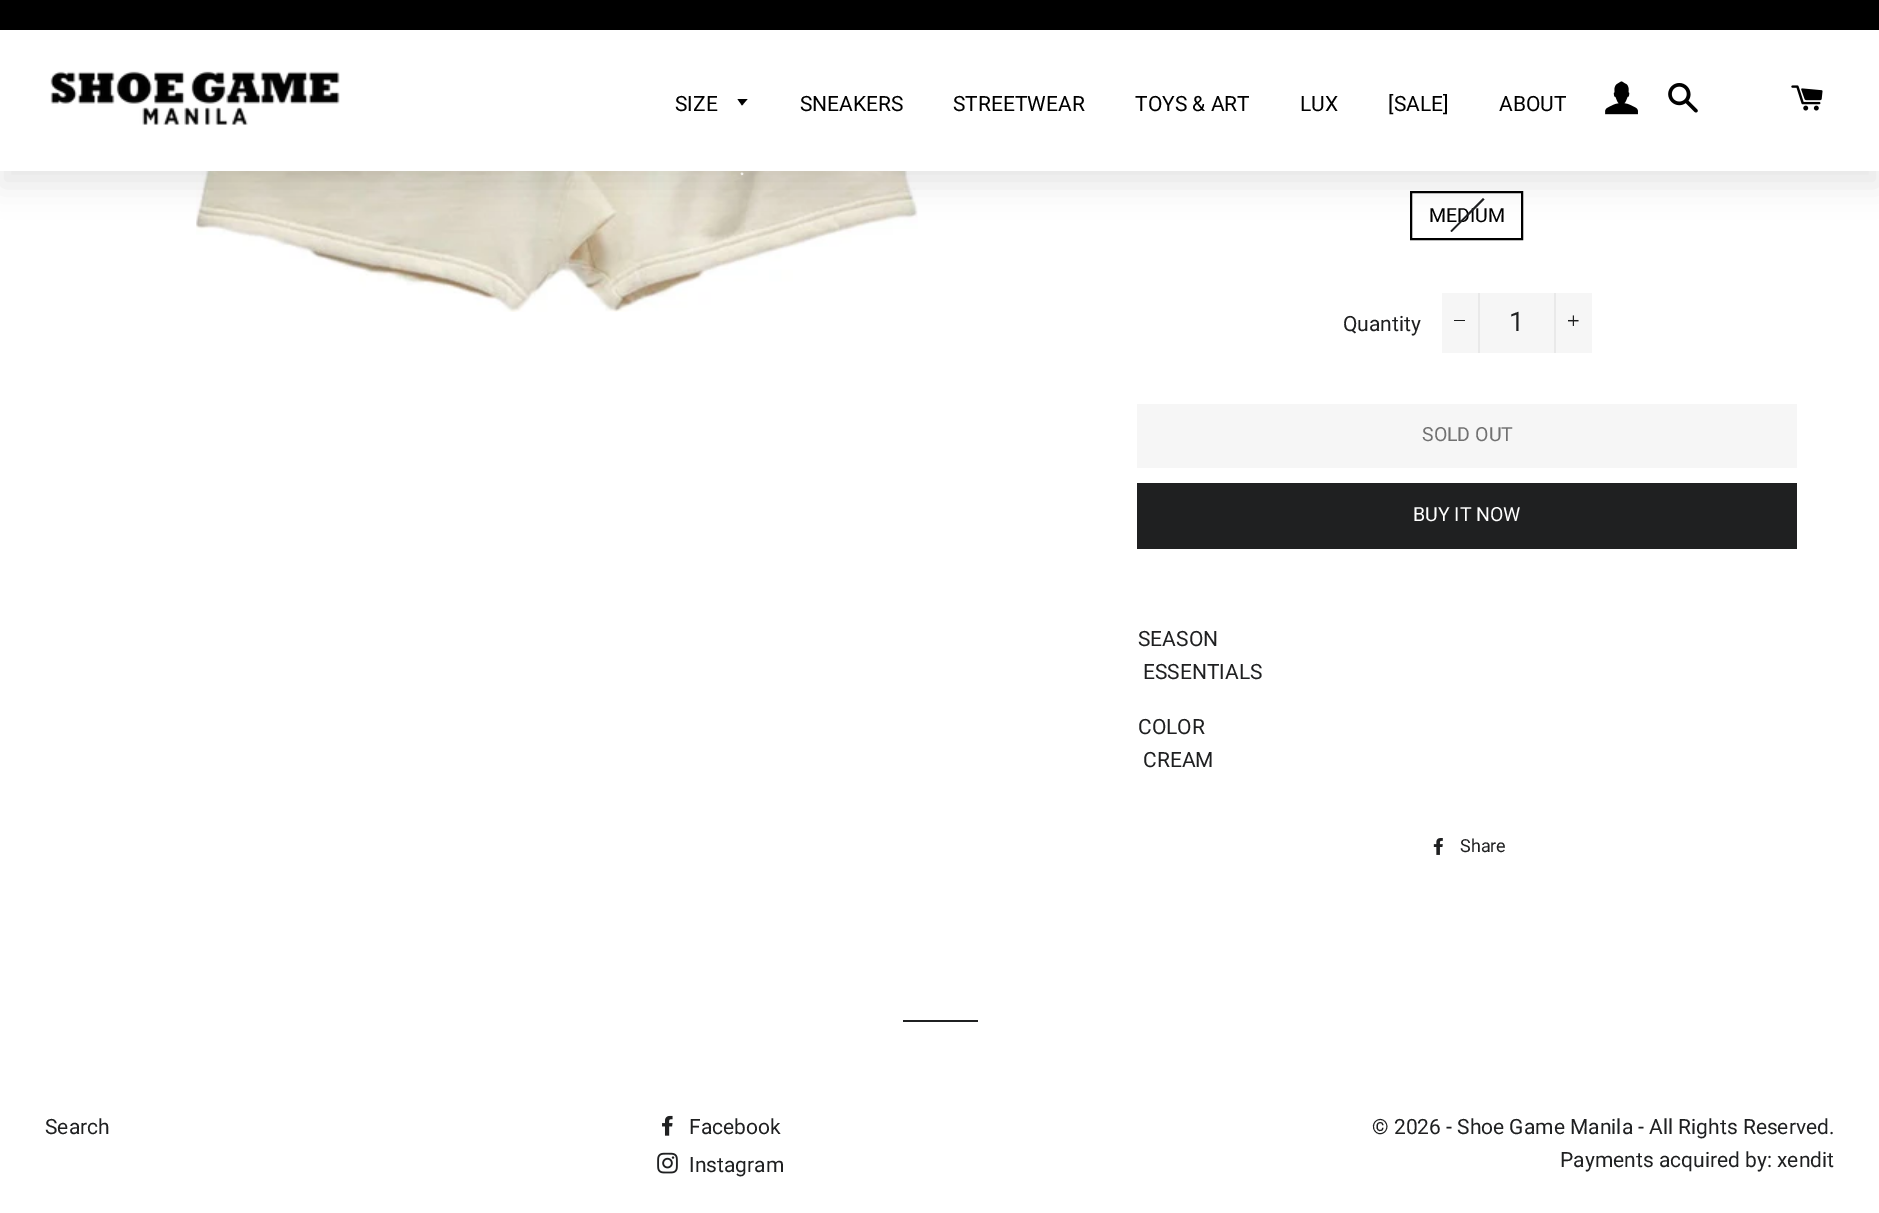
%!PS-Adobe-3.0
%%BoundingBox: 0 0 1879 1213
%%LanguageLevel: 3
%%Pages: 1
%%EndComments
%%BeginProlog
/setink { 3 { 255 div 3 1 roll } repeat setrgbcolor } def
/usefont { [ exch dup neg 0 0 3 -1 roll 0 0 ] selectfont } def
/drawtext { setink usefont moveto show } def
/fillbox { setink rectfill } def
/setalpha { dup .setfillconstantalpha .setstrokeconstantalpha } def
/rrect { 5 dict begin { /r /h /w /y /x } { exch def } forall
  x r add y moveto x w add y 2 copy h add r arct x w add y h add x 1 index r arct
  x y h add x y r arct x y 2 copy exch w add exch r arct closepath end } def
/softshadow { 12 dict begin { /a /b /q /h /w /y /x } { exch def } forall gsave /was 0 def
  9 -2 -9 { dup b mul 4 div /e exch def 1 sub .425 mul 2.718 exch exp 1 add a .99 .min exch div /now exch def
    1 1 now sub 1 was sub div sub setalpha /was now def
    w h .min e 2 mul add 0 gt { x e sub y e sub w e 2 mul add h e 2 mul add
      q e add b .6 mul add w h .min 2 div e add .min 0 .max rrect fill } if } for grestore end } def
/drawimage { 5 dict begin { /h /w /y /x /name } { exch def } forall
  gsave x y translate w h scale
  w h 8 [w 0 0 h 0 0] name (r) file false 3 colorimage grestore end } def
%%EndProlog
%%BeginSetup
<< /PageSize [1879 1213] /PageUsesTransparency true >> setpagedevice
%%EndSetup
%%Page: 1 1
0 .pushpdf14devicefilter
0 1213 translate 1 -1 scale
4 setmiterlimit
0 0 1879 1213 255 255 255 fillbox
(assets/img5.rgb) 196 171 722 141 drawimage
0 0 0 setink
2 setlinewidth
1411 192 111 47 rectstroke
(MEDIUM) 1429 222 /Roboto-Regular 19.5 0 0 0 drawtext
31 32 33 setink
1483 198 moveto 1484.5 199.5 lineto 1451.5 232 lineto 1450.5 231 lineto closepath fill
0 0 0 setink
0 15 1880 171 0 15 0.09 softshadow
0 0 1879 30 0 0 0 fillbox
0 30 1879 141 255 255 255 fillbox
(assets/img1.rgb) 50 71 290 54 drawimage
(SIZE) 675 111 /Roboto-Regular 21 0 0 0 drawtext
737.5 99 moveto 742 105.5 lineto 747.5 99 lineto closepath fill
(.) 739 175 /Roboto-Regular 24 241 239 235 drawtext
(SNEAKERS) 800 111 /Roboto-Regular 21 0 0 0 drawtext
(STREETWEAR) 953 111 /Roboto-Regular 21 0 0 0 drawtext
(TOYS & ART) 1135 111 /Roboto-Regular 21 0 0 0 drawtext
(LUX) 1300 111 /Roboto-Regular 21 0 0 0 drawtext
([SALE]) 1388 111 /Roboto-Regular 21 0 0 0 drawtext
(ABOUT) 1499 111 /Roboto-Regular 21 0 0 0 drawtext
(assets/img2.rgb) 1605 81 33 34 drawimage
(assets/img3.rgb) 1668 83 30 30 drawimage
(assets/img4.rgb) 1791 85 32 26 drawimage
(Quantity) 1343 331 /Roboto-Regular 21 31 32 33 drawtext
1442 293 150 60 246 246 246 fillbox
1478 293 2 60 233 233 233 fillbox
1454 320 11 1 28 29 29 fillbox
(1) 1509 331 /Roboto-Regular 27 31 32 33 drawtext
1554 293 2 60 233 233 233 fillbox
(assets/img6.rgb) 1568 315 11 11 drawimage
1137 404 660 64 246 246 246 fillbox
(SOLD OUT) 1422 441 /Roboto-Regular 19.5 113 113 113 drawtext
1137 483 660 66 31 32 33 fillbox
(BUY IT NOW) 1413 521 /Roboto-Regular 19.5 255 255 255 drawtext
(SEASON) 1138 646 /Roboto-Regular 21 31 32 33 drawtext
(ESSENTIALS) 1143 679 /Roboto-Regular 21 31 32 33 drawtext
(COLOR) 1138 734 /Roboto-Regular 21 31 32 33 drawtext
(CREAM) 1143 767 /Roboto-Regular 21 31 32 33 drawtext
(assets/img7.rgb) 1433 838 10 17 drawimage
(Share) 1460 852 /Roboto-Regular 18 31 32 33 drawtext
903 1020 75 2 31 32 33 fillbox
(Search) 45 1134 /Roboto-Regular 21 31 32 33 drawtext
(assets/img8.rgb) 662 1115 11 21 drawimage
(Facebook) 689 1134 /Roboto-Regular 21 31 32 33 drawtext
(assets/img9.rgb) 657 1152 21 22 drawimage
(Instagram) 689 1172 /Roboto-Regular 21 31 32 33 drawtext
(© 2026 - Shoe Game Manila - All Rights Reserved.) 1372 1134 /Roboto-Regular 21 31 32 33 drawtext
(Payments acquired by: xendit) 1560 1167 /Roboto-Regular 21 31 32 33 drawtext
.poppdf14devicefilter showpage
%%EOF
